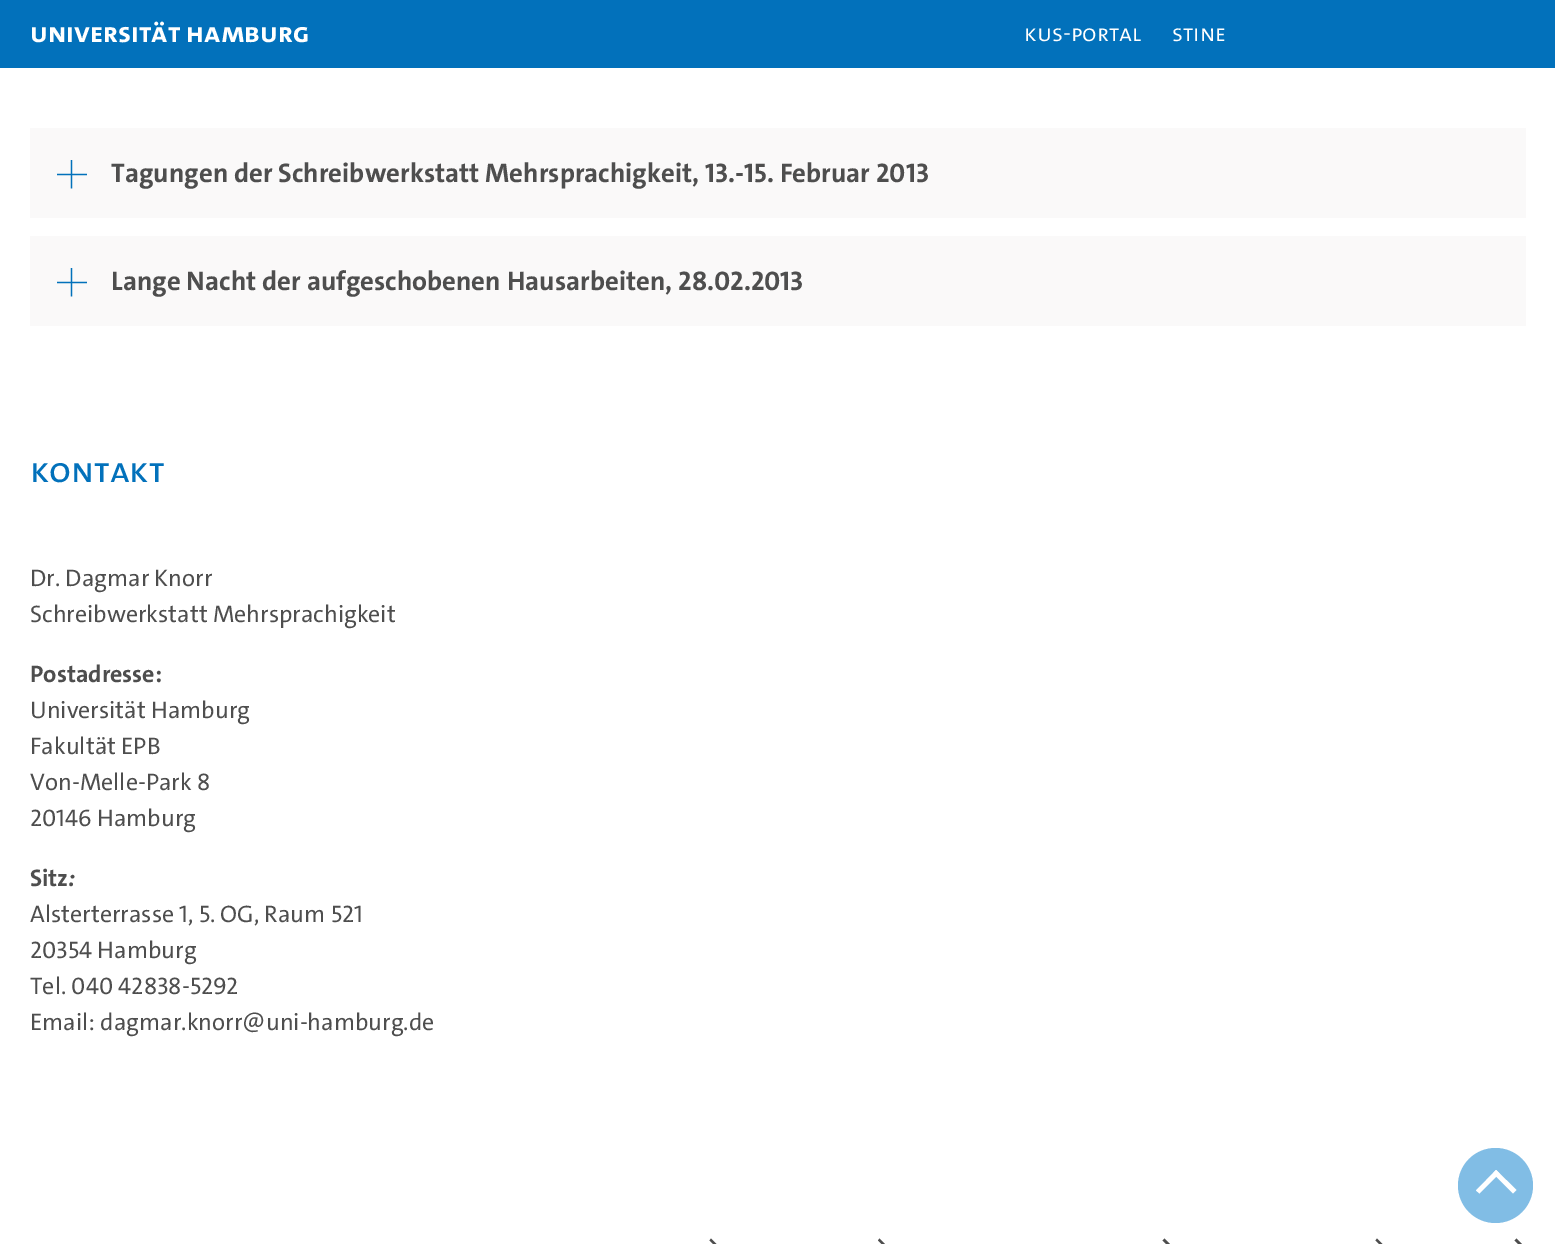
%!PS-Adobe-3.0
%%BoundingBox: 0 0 1555 1244
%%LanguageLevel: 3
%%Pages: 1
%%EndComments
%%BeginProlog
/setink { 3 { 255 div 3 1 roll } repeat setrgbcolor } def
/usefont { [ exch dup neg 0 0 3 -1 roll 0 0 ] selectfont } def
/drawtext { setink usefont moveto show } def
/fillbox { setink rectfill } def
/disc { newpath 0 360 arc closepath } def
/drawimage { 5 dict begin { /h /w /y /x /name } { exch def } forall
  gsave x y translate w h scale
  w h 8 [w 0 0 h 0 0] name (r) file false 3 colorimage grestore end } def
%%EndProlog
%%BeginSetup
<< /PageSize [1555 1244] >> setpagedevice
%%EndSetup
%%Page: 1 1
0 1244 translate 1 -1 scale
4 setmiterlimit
0 0 1555 1244 255 255 255 fillbox
0 0 1555 68 2 113 187 fillbox
(Universität Hamburg) 30 42 /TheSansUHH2-Bold 28.5 255 255 255 drawtext
(KUS-Portal) 1024 41 /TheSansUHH-Light 24 255 255 255 drawtext
(STiNE) 1172 41 /TheSansUHH-Light 24 255 255 255 drawtext
30 128 1496 90 250 249 249 fillbox
(assets/img1.rgb) 57 160 30 29 drawimage
(Tagungen der Schreibwerkstatt Mehrsprachigkeit, 13.-15. Februar 2013) 111 182 /TheSansUHH-Bold 27 78 78 78 drawtext
30 236 1496 90 250 249 249 fillbox
(assets/img1.rgb) 57 268 30 29 drawimage
(Lange Nacht der aufgeschobenen Hausarbeiten, 28.02.2013) 111 290 /TheSansUHH-Bold 27 78 78 78 drawtext
(Kontakt) 30 482 /TheSansUHH-Regular 36 2 113 187 drawtext
(Dr. Dagmar Knorr) 30 586 /TheSansUHH2-Regular 24 78 78 78 drawtext
(Schreibwerkstatt Mehrsprachigkeit) 30 622 /TheSansUHH2-Regular 24 78 78 78 drawtext
(Postadresse:) 30 682 /TheSansUHH-Bold 24 78 78 78 drawtext
(Universität Hamburg) 30 718 /TheSansUHH2-Regular 24 78 78 78 drawtext
(Fakultät EPB) 30 754 /TheSansUHH2-Regular 24 78 78 78 drawtext
(Von-Melle-Park 8) 30 790 /TheSansUHH2-Regular 24 78 78 78 drawtext
(20146 Hamburg) 30 826 /TheSansUHH2-Regular 24 78 78 78 drawtext
(Sitz) 30 886 /TheSansUHH-Bold 24 78 78 78 drawtext
(:) 68 886 /TheSansUHH-BoldItalic 24 78 78 78 drawtext
(Alsterterrasse 1, 5. OG, Raum 521) 30 922 /TheSansUHH2-Regular 24 78 78 78 drawtext
(20354 Hamburg) 30 958 /TheSansUHH2-Regular 24 78 78 78 drawtext
(Tel. 040 42838-5292) 30 994 /TheSansUHH2-Regular 24 78 78 78 drawtext
(Email: dagmar.knorr@uni-hamburg.de) 30 1030 /TheSansUHH2-Regular 24 78 78 78 drawtext
711 1238.5 moveto 719.5 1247 lineto 718 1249 lineto 709.5 1240.5 lineto closepath fill
879.5 1238.5 moveto 888 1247 lineto 886.5 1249 lineto 878 1240.5 lineto closepath fill
1164.5 1238.5 moveto 1173 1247 lineto 1171 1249 lineto 1162.5 1240.5 lineto closepath fill
1377 1238.5 moveto 1385.5 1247 lineto 1384 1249 lineto 1375.5 1240.5 lineto closepath fill
1516.5 1238.5 moveto 1525 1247 lineto 1523 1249 lineto 1514.5 1240.5 lineto closepath fill
129 189 229 setink
1495.5 1185.5 37.5 disc fill
255 255 255 setink
1476 1190.5 moveto 1496 1170 lineto 1499.5 1173.5 lineto 1479.5 1193.5 lineto closepath fill
1493 1173.5 moveto 1496 1170 lineto 1516.5 1190 lineto 1513 1193.5 lineto closepath fill
showpage
%%EOF
